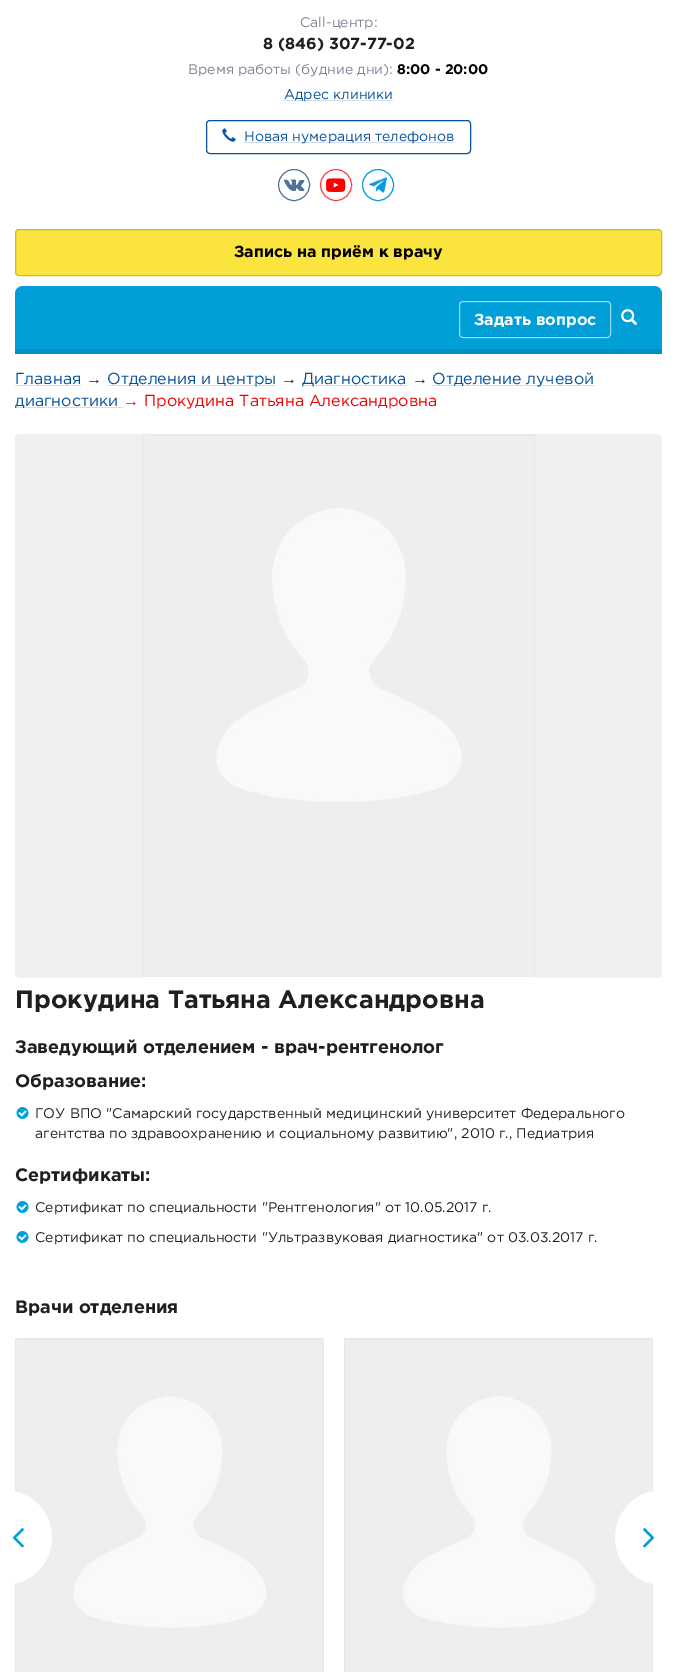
%!PS-Adobe-3.0
%%BoundingBox: 0 0 677 1672
%%LanguageLevel: 3
%%Pages: 1
%%EndComments
%%BeginProlog
/setink { 3 { 255 div 3 1 roll } repeat setrgbcolor } def
/usefont { [ exch dup neg 0 0 3 -1 roll 0 0 ] selectfont } def
/drawtext { setink usefont moveto show } def
/fillbox { setink rectfill } def
/disc { newpath 0 360 arc closepath } def
/rrect { 5 dict begin { /r /h /w /y /x } { exch def } forall
  x r add y moveto x w add y 2 copy h add r arct x w add y h add x 1 index r arct
  x y h add x y r arct x y 2 copy exch w add exch r arct closepath end } def
/drawimage { 5 dict begin { /h /w /y /x /name } { exch def } forall
  gsave x y translate w h scale
  w h 8 [w 0 0 h 0 0] name (r) file false 3 colorimage grestore end } def
%%EndProlog
%%BeginSetup
<< /PageSize [677 1672] >> setpagedevice
%%EndSetup
%%Page: 1 1
0 1672 translate 1 -1 scale
4 setmiterlimit
0 0 677 1672 255 255 255 fillbox
(Call-центр:) 300 27 /Gotham-Regular 14 128 130 152 drawtext
(8 \(846\) 307-77-02) 263 49 /Gotham-Bold 16 31 31 31 drawtext
(Время работы \(будние дни\):) 188 74 /Gotham-Regular 14 128 130 152 drawtext
(8:00 - 20:00) 397 74 /Gotham-Bold 14 0 0 0 drawtext
284 100 109 1 212 220 233 fillbox
(Адрес клиники) 284 99 /Gotham-Regular 14 6 81 157 drawtext
206.5 120.5 264 33 3.5 rrect stroke
(assets/img1.rgb) 222 128 14 14 drawimage
244 142 211 1 212 220 233 fillbox
(Новая нумерация телефонов) 244 141 /Gotham-Regular 14 6 81 157 drawtext
(assets/img2.rgb) 283 179 22 12 drawimage
80 114 153 setink
294 185 15.5 disc stroke
(assets/img3.rgb) 326 178 20 14 drawimage
255 65 65 setink
336 185 15.5 disc stroke
(assets/img4.rgb) 369 177 18 16 drawimage
3 155 229 setink
378 185 15.5 disc stroke
251 228 62 setink
15.5 229.5 646 46 3.5 rrect gsave fill grestore
205 186 46 setink
stroke
(Запись на приём к врачу) 234 257 /Gotham-Bold 16 0 0 0 drawtext
0 159 215 setink
23 286 moveto 654 286 lineto 658.5 286 662 289.5 662 294 curveto 662 354 lineto 15 354 lineto 15 294 lineto 15 289.5 18.5 286 23 286 curveto closepath fill
153 217 239 setink
459.5 301.5 151 36 3.5 rrect stroke
(Задать вопрос) 474 325 /Gotham-Bold 16 255 255 255 drawtext
(assets/img5.rgb) 621 309 17 17 drawimage
15 349 647 5 0 143 194 fillbox
(Главная) 15 384 /Gotham-Regular 16 6 81 157 drawtext
15 385 66 1 212 220 233 fillbox
(→) 86 384 /LiberationSans-Regular 16 31 31 31 drawtext
107 385 169 1 212 220 233 fillbox
(Отделения и центры) 107 384 /Gotham-Regular 16 6 81 157 drawtext
(→) 281 384 /LiberationSans-Regular 16 31 31 31 drawtext
302 385 105 1 212 220 233 fillbox
(Диагностика) 302 384 /Gotham-Regular 16 6 81 157 drawtext
(→) 412 384 /LiberationSans-Regular 16 31 31 31 drawtext
432 385 162 1 212 220 233 fillbox
(Отделение лучевой) 432 384 /Gotham-Regular 16 6 81 157 drawtext
15 407 108 1 212 220 233 fillbox
(диагностики) 15 406 /Gotham-Regular 16 6 81 157 drawtext
(→) 123 406 /LiberationSans-Regular 16 238 0 0 drawtext
(Прокудина Татьяна Александровна) 144 406 /Gotham-Regular 16 238 0 0 drawtext
239 239 239 setink
15 434 647 544 5 rrect fill
(assets/img6.rgb) 142 434 393 544 drawimage
(Прокудина Татьяна Александровна) 15 1008 /Gotham-Bold 25 31 31 31 drawtext
(Заведующий отделением - врач-рентгенолог) 15 1053 /Gotham-Bold 18 31 31 31 drawtext
(Образование:) 15 1087 /Gotham-Bold 18 31 31 31 drawtext
(assets/img7.rgb) 16 1107 13 12 drawimage
(ГОУ ВПО "Самарский государственный медицинский университет Федерального) 35 1118 /Gotham-Regular 14 31 31 31 drawtext
(агентства по здравоохранению и социальному развитию", 2010 г., Педиатрия) 35 1138 /Gotham-Regular 14 31 31 31 drawtext
(Сертификаты:) 15 1181 /Gotham-Bold 18 31 31 31 drawtext
(assets/img7.rgb) 16 1201 13 12 drawimage
(Сертификат по специальности "Рентгенология" от 10.05.2017 г.) 35 1212 /Gotham-Regular 14 31 31 31 drawtext
(assets/img7.rgb) 16 1231 13 12 drawimage
(Сертификат по специальности "Ультразвуковая диагностика" от 03.03.2017 г.) 35 1242 /Gotham-Regular 14 31 31 31 drawtext
(Врачи отделения) 15 1313 /Gotham-Bold 18 31 31 31 drawtext
(assets/img8.rgb) 15 1338 309 334 drawimage
(assets/img8.rgb) 344 1338 309 334 drawimage
(assets/img9.rgb) 12 1491 40 93 drawimage
(assets/img10.rgb) 615 1491 40 93 drawimage
showpage
%%EOF
